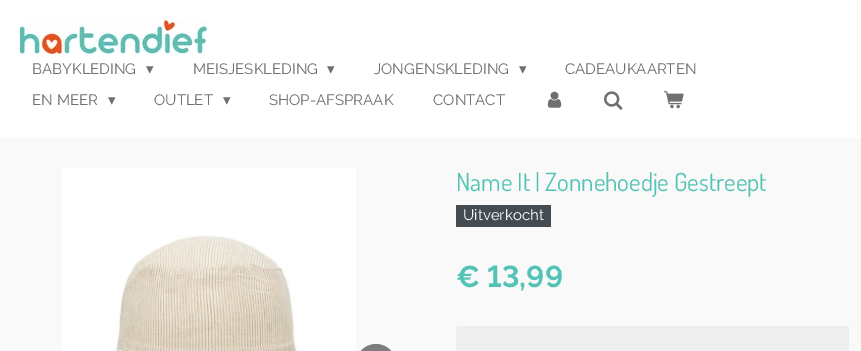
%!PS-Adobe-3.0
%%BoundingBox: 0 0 861 351
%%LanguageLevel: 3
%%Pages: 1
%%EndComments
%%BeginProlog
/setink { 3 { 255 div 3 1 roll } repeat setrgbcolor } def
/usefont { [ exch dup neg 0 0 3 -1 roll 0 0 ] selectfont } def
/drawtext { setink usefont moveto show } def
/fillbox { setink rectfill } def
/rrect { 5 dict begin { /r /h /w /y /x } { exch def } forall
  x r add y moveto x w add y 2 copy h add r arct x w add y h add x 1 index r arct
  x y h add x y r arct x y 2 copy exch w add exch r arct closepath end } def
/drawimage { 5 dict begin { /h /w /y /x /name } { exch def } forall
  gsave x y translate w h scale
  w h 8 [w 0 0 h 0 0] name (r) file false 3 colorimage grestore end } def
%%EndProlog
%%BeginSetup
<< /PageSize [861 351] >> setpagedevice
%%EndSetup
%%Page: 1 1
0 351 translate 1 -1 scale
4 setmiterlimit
0 0 861 351 255 255 255 fillbox
(assets/img1.rgb) 20 20 187 34 drawimage
(BABYKLEDING) 32 74 /Raleway-Regular 15 112 112 112 drawtext
(▾) 146 74 /DejaVuSans-Regular 15 112 112 112 drawtext
(MEISJESKLEDING) 193 74 /Raleway-Regular 15 112 112 112 drawtext
(▾) 327 74 /DejaVuSans-Regular 15 112 112 112 drawtext
(JONGENSKLEDING) 374 74 /Raleway-Regular 15 112 112 112 drawtext
(▾) 519 74 /DejaVuSans-Regular 15 112 112 112 drawtext
(CADEAUKAARTEN) 565 74 /Raleway-Regular 15 112 112 112 drawtext
(EN MEER) 32 105 /Raleway-Regular 15 112 112 112 drawtext
(▾) 108 105 /DejaVuSans-Regular 15 112 112 112 drawtext
(OUTLET) 154 105 /Raleway-Regular 15 112 112 112 drawtext
(▾) 223 105 /DejaVuSans-Regular 15 112 112 112 drawtext
(SHOP-AFSPRAAK) 269 105 /Raleway-Regular 15 112 112 112 drawtext
(CONTACT) 433 105 /Raleway-Regular 15 112 112 112 drawtext
(assets/img2.rgb) 547 91 15 17 drawimage
(assets/img3.rgb) 604 91 19 19 drawimage
(assets/img4.rgb) 664 91 20 18 drawimage
0 138 861 213 249 249 249 fillbox
(assets/img5.rgb) 62 168 294 183 drawimage
125 125 125 setink
356 344 40 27 20 rrect fill
(Name It | Zonnehoedje Gestreept) 456 191 /Dosis-Regular 25 83 195 181 drawtext
456 205 95 22 66 76 81 fillbox
(Uitverkocht) 463 220 /Raleway-Regular 15 255 255 255 drawtext
(€ 13,99) 456 287 /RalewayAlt-Bold 30 83 195 181 drawtext
238 238 238 setink
456 326 393 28 3 rrect fill
showpage
%%EOF
